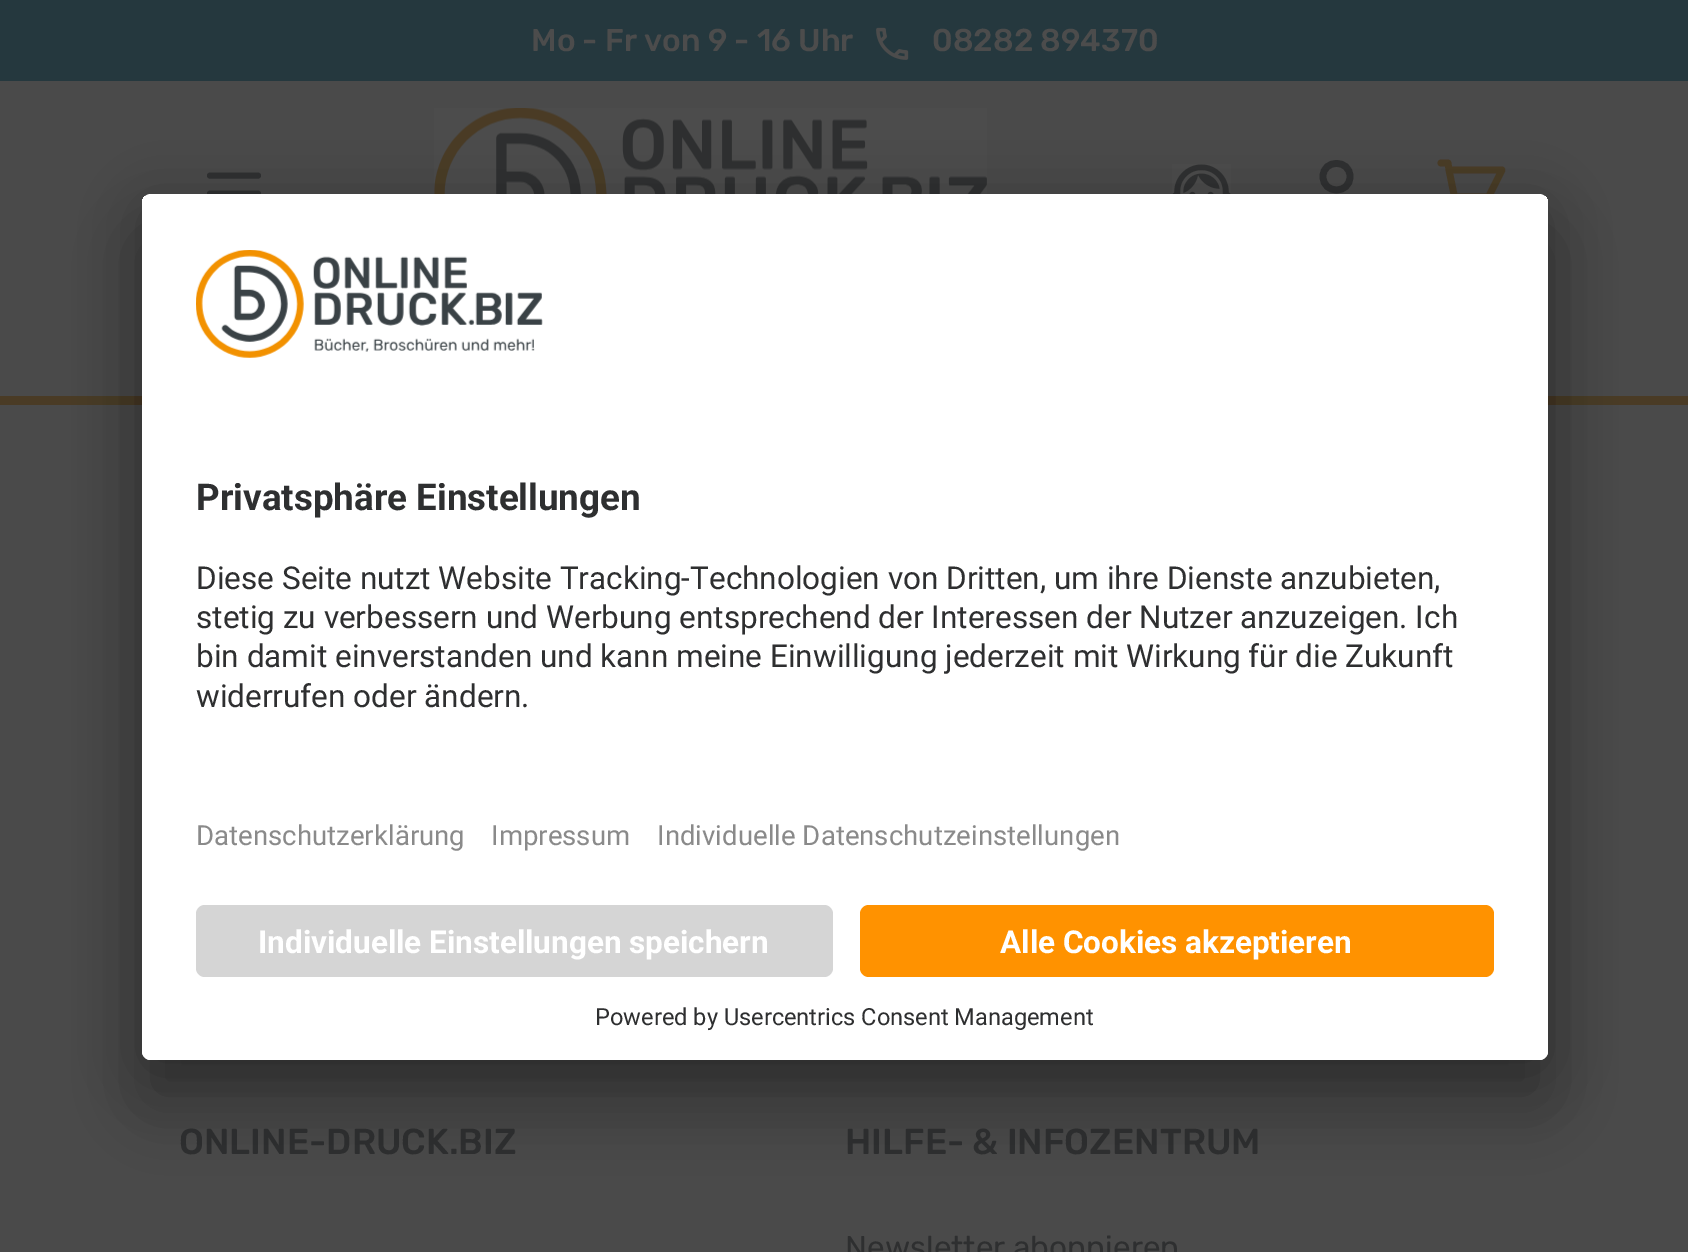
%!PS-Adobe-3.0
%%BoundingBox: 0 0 1688 1252
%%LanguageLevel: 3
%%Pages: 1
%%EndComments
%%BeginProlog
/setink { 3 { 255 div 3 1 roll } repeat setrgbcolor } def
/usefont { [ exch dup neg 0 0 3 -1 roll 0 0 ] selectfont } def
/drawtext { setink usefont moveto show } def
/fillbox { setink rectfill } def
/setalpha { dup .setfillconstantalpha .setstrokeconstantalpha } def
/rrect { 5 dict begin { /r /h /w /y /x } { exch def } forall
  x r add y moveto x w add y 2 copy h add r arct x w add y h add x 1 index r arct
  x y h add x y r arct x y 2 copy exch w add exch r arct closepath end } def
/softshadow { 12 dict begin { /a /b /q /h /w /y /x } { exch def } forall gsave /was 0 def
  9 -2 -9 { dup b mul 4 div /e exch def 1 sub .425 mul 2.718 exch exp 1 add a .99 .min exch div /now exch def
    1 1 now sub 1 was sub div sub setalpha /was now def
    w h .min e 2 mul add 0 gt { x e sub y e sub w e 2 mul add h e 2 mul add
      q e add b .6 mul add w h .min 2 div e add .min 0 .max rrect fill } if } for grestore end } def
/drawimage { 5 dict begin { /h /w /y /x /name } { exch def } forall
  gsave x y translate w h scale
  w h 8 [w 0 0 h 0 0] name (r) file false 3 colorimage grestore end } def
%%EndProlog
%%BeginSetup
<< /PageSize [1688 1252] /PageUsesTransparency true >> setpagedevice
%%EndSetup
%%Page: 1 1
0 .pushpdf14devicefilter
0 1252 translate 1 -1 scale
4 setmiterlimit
0 0 1688 1252 74 74 74 fillbox
0 0 1688 81 37 56 62 fillbox
(Mo - Fr von 9 - 16 Uhr) 531 51 /Rubik-Light 31.5 76 76 76 drawtext
(assets/img1.rgb) 876 27 33 33 drawimage
(08282 894370) 932 51 /Rubik-Light 31.5 76 76 76 drawtext
0 396 1688 9 74 59 37 fillbox
46 47 48 setink
6 setlinewidth
1 setlinecap
1 setlinejoin
210 175.5 moveto 258 175.5 lineto 210 193.5 moveto 258 193.5 lineto 210 211.5 moveto 258 211.5 lineto stroke
(assets/img2.rgb) 434 108 553 86 drawimage
(assets/img3.rgb) 1172 164 59 30 drawimage
6.8 setlinewidth
1350 176.5 moveto 1350 194.5 1323 194.5 1323 176.5 curveto 1323 159 1350 159 1350 176.5 curveto closepath 1336.5 200 moveto 1323.5 200 1313 211 1313 224 curveto 1360 224 lineto 1360 211 1349.5 200 1336.5 200 curveto closepath stroke
74 59 37 setink
1441 163 moveto 1448 163 lineto 1449 170 lineto 1454.5 197 moveto 1488.5 197 lineto 1502 170 lineto 1449 170 lineto 1454.5 197 moveto 1449 170 lineto 1454.5 197 moveto 1447 204.5 lineto 1445 206.5 1446.5 210.5 1449.5 210.5 curveto 1488.5 210.5 lineto 1488.5 210.5 moveto 1479.5 210.5 1479.5 224 1488.5 224 curveto 1497 224 1497 210.5 1488.5 210.5 curveto closepath 1461.5 217 moveto 1461.5 226 1448 226 1448 217 curveto 1448 208.5 1461.5 208.5 1461.5 217 curveto closepath stroke
(ONLINE-DRUCK.BIZ) 179 1154 /Rubik-Light 36 46 47 48 drawtext
(HILFE- & INFOZENTRUM) 845 1154 /Rubik-Light 36 46 47 48 drawtext
(Newsletter abonnieren) 845 1258 /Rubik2-Light 31.5 46 47 48 drawtext
0 0 0 setink
142 239 1406 866 9 31.5 0.3 softshadow
142 205 1406 866 9 29 0.22 softshadow
255 255 255 setink
142 194 1406 866 9 rrect fill
gsave
142 194 1406 866 9 rrect clip newpath
151 194 moveto 1539 194 lineto 1544 194 1548 198 1548 203 curveto 1548 887 lineto 142 887 lineto 142 203 lineto 142 198 146 194 151 194 curveto closepath clip newpath
142 196 1406 691 255 255 255 fillbox
grestore
(assets/img4.rgb) 196 250 347 108 drawimage
(Privatsphäre Einstellungen) 196 510 /Roboto-Bold 36.8 46 47 48 drawtext
(Diese Seite nutzt Website Tracking-Technologien von Dritten, um ihre Dienste anzubieten,) 196 589 /Roboto-Regular 31.5 46 47 48 drawtext
(stetig zu verbessern und Werbung entsprechend der Interessen der Nutzer anzuzeigen. Ich) 196 628 /Roboto-Regular 31.5 46 47 48 drawtext
(bin damit einverstanden und kann meine Einwilligung jederzeit mit Wirkung für die Zukunft) 196 667 /Roboto-Regular 31.5 46 47 48 drawtext
(widerrufen oder ändern.) 196 707 /Roboto-Regular 31.5 46 47 48 drawtext
(Datenschutzerklärung) 196 845 /Roboto-Regular 27.6 138 138 138 drawtext
(Impressum) 491 845 /Roboto-Regular 27.6 138 138 138 drawtext
(Individuelle Datenschutzeinstellungen) 657 845 /Roboto-Regular 27.6 138 138 138 drawtext
255 255 255 setink
142 887 moveto 1548 887 lineto 1548 1051 lineto 1548 1056 1544 1060 1539 1060 curveto 151 1060 lineto 146 1060 142 1056 142 1051 curveto closepath fill
213 213 213 setink
196 905 637 72 9 rrect fill
(Individuelle Einstellungen speichern) 258 953 /Roboto-Bold 31.5 255 255 255 drawtext
255 146 0 setink
860 905 634 72 9 rrect fill
(Alle Cookies akzeptieren) 1000 953 /Roboto-Bold 31.5 255 255 255 drawtext
(Powered by Usercentrics Consent Management) 595 1025 /Roboto-Regular 23.6 46 47 48 drawtext
.poppdf14devicefilter showpage
%%EOF
